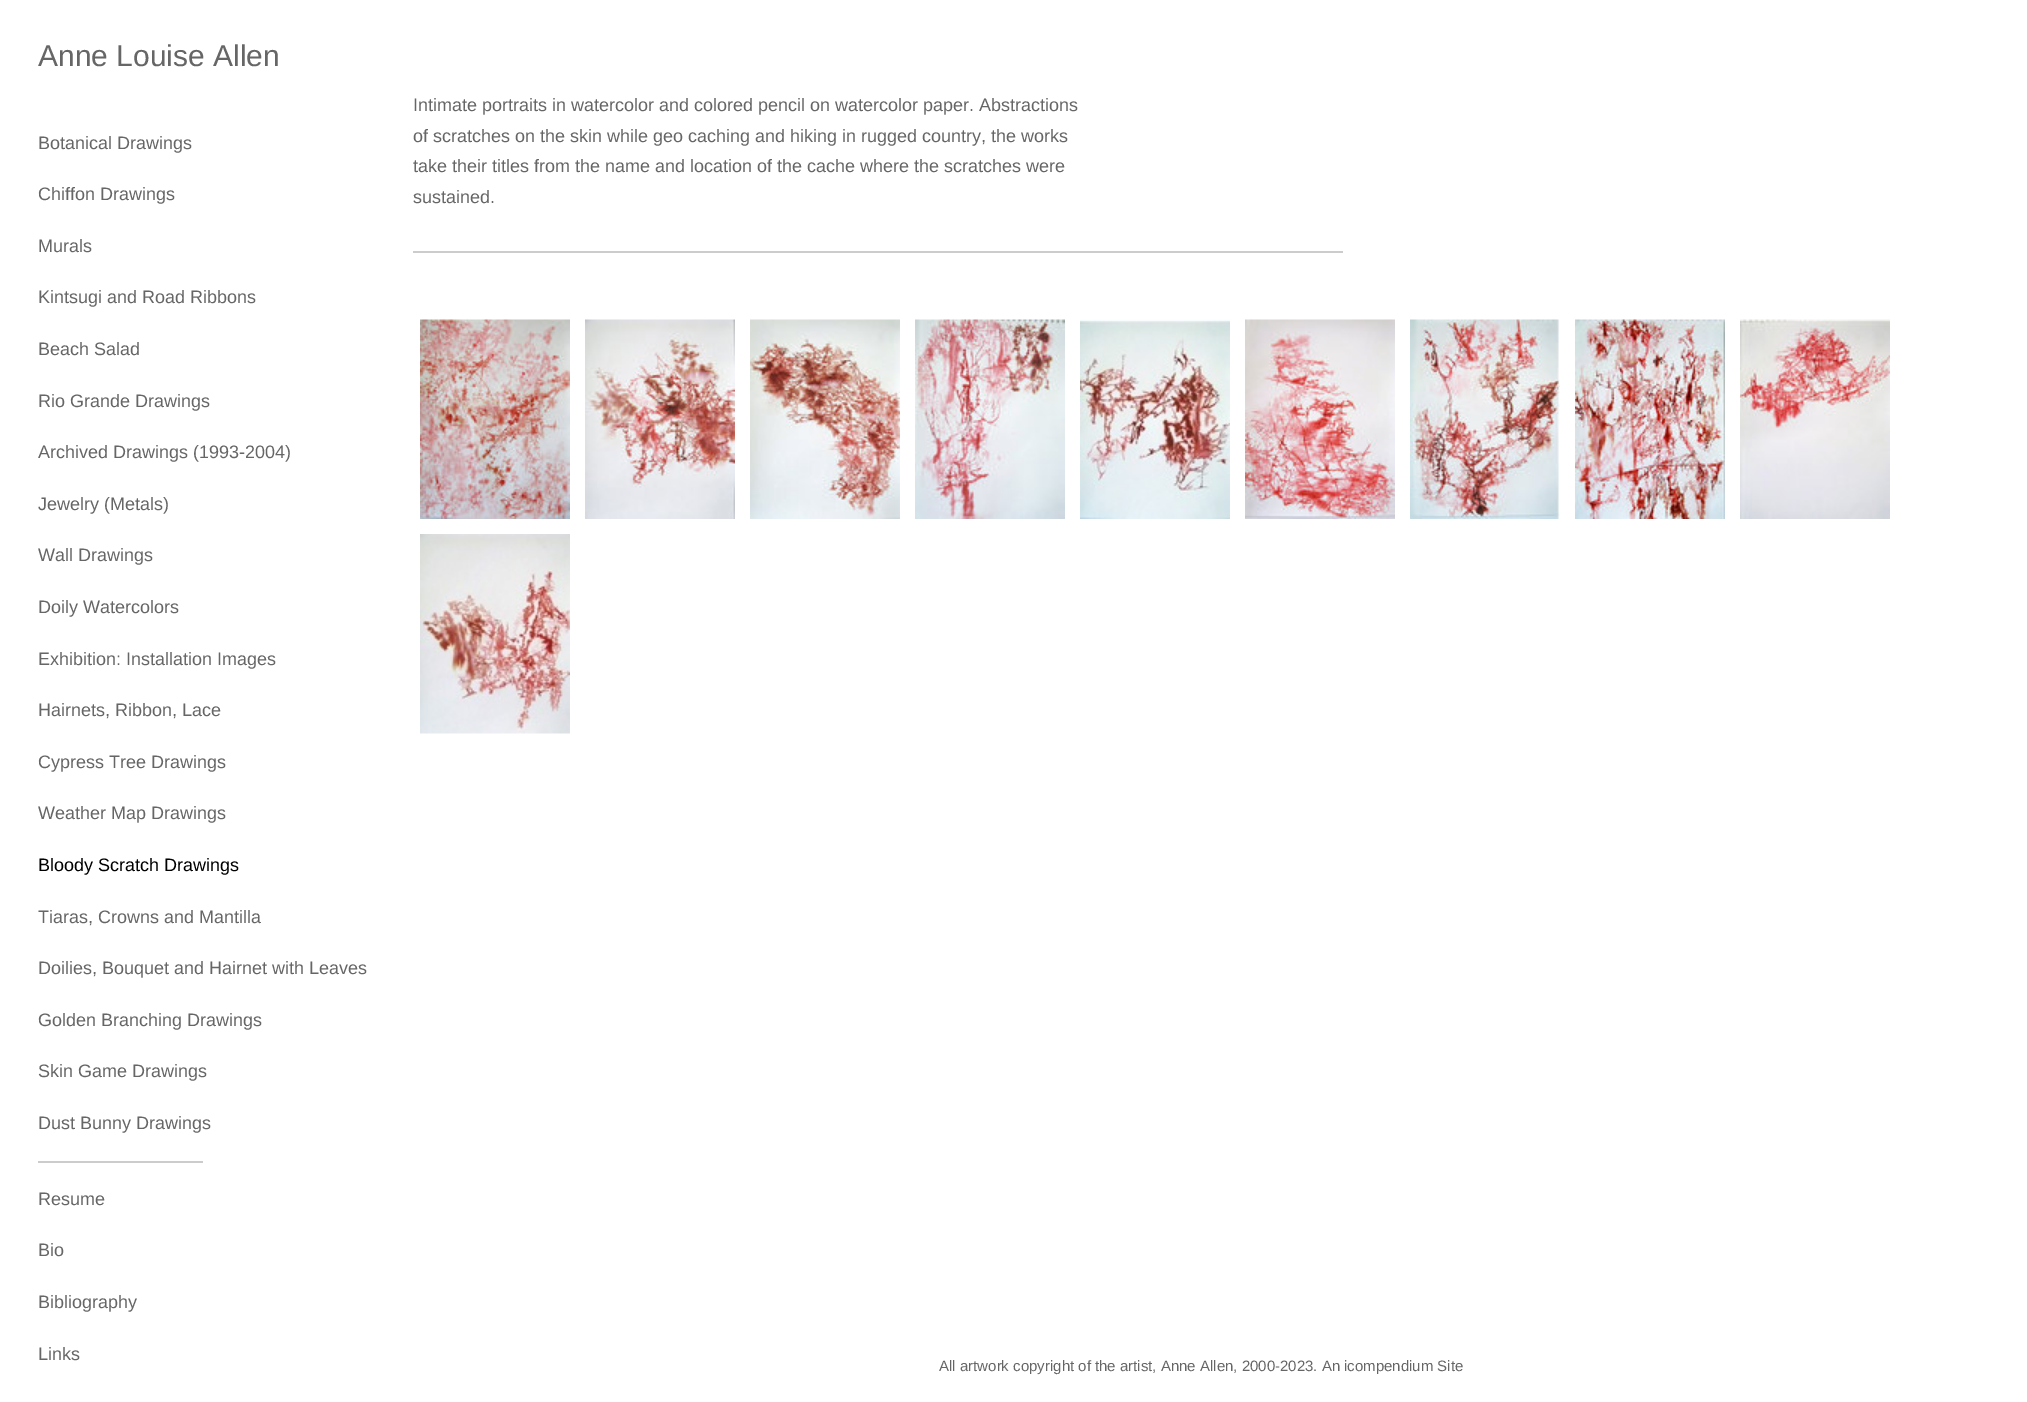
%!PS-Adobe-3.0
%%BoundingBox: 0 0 2027 1402
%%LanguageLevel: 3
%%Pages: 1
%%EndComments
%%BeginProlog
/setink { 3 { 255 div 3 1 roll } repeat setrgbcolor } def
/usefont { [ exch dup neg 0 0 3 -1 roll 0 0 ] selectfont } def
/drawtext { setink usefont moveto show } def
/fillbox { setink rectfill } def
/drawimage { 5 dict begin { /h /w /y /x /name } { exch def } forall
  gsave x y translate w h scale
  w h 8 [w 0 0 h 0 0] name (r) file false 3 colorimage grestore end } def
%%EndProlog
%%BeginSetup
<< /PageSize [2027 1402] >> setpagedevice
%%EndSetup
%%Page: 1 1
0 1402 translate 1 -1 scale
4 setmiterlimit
0 0 2027 1402 255 255 255 fillbox
(Anne Louise Allen) 38 66 /LiberationSans-Regular 30 102 102 102 drawtext
(Botanical Drawings) 38 149 /LiberationSans-Regular 18 102 102 102 drawtext
(Chiffon Drawings) 38 200 /LiberationSans-Regular 18 102 102 102 drawtext
(Murals) 38 252 /LiberationSans-Regular 18 102 102 102 drawtext
(Kintsugi and Road Ribbons) 38 303 /LiberationSans-Regular 18 102 102 102 drawtext
(Beach Salad) 38 355 /LiberationSans-Regular 18 102 102 102 drawtext
(Rio Grande Drawings) 38 407 /LiberationSans-Regular 18 102 102 102 drawtext
(Archived Drawings \(1993-2004\)) 38 458 /LiberationSans-Regular 18 102 102 102 drawtext
(Jewelry \(Metals\)) 38 510 /LiberationSans-Regular 18 102 102 102 drawtext
(Wall Drawings) 38 561 /LiberationSans-Regular 18 102 102 102 drawtext
(Doily Watercolors) 38 613 /LiberationSans-Regular 18 102 102 102 drawtext
(Exhibition: Installation Images) 38 665 /LiberationSans-Regular 18 102 102 102 drawtext
(Hairnets, Ribbon, Lace) 38 716 /LiberationSans-Regular 18 102 102 102 drawtext
(Cypress Tree Drawings) 38 768 /LiberationSans-Regular 18 102 102 102 drawtext
(Weather Map Drawings) 38 819 /LiberationSans-Regular 18 102 102 102 drawtext
(Bloody Scratch Drawings) 38 871 /LiberationSans-Regular 18 0 0 0 drawtext
(Tiaras, Crowns and Mantilla) 38 923 /LiberationSans-Regular 18 102 102 102 drawtext
(Doilies, Bouquet and Hairnet with Leaves) 38 974 /LiberationSans-Regular 18 102 102 102 drawtext
(Golden Branching Drawings) 38 1026 /LiberationSans-Regular 18 102 102 102 drawtext
(Skin Game Drawings) 38 1077 /LiberationSans-Regular 18 102 102 102 drawtext
(Dust Bunny Drawings) 38 1129 /LiberationSans-Regular 18 102 102 102 drawtext
38 1161 165 2 204 204 204 fillbox
(Resume) 38 1205 /LiberationSans-Regular 18 102 102 102 drawtext
(Bio) 38 1256 /LiberationSans-Regular 18 102 102 102 drawtext
(Bibliography) 38 1308 /LiberationSans-Regular 18 102 102 102 drawtext
(Links) 38 1360 /LiberationSans-Regular 18 102 102 102 drawtext
(Intimate portraits in watercolor and colored pencil on watercolor paper. Abstractions) 413 111 /LiberationSans-Regular 18 102 102 102 drawtext
(of scratches on the skin while geo caching and hiking in rugged country, the works) 413 142 /LiberationSans-Regular 18 102 102 102 drawtext
(take their titles from the name and location of the cache where the scratches were) 413 172 /LiberationSans-Regular 18 102 102 102 drawtext
(sustained.) 413 203 /LiberationSans-Regular 18 102 102 102 drawtext
413 251 930 2 204 204 204 fillbox
(assets/img1.rgb) 420 319 150 200 drawimage
(assets/img2.rgb) 585 319 150 200 drawimage
(assets/img3.rgb) 750 319 150 200 drawimage
(assets/img4.rgb) 915 319 150 200 drawimage
(assets/img5.rgb) 1080 319 150 200 drawimage
(assets/img6.rgb) 1245 319 150 200 drawimage
(assets/img7.rgb) 1410 319 150 200 drawimage
(assets/img8.rgb) 1575 319 150 200 drawimage
(assets/img9.rgb) 1740 319 150 200 drawimage
(assets/img10.rgb) 420 534 150 200 drawimage
(All artwork copyright of the artist, Anne Allen, 2000-2023. An icompendium Site) 939 1371 /LiberationSans-Regular 15 102 102 102 drawtext
showpage
%%EOF
